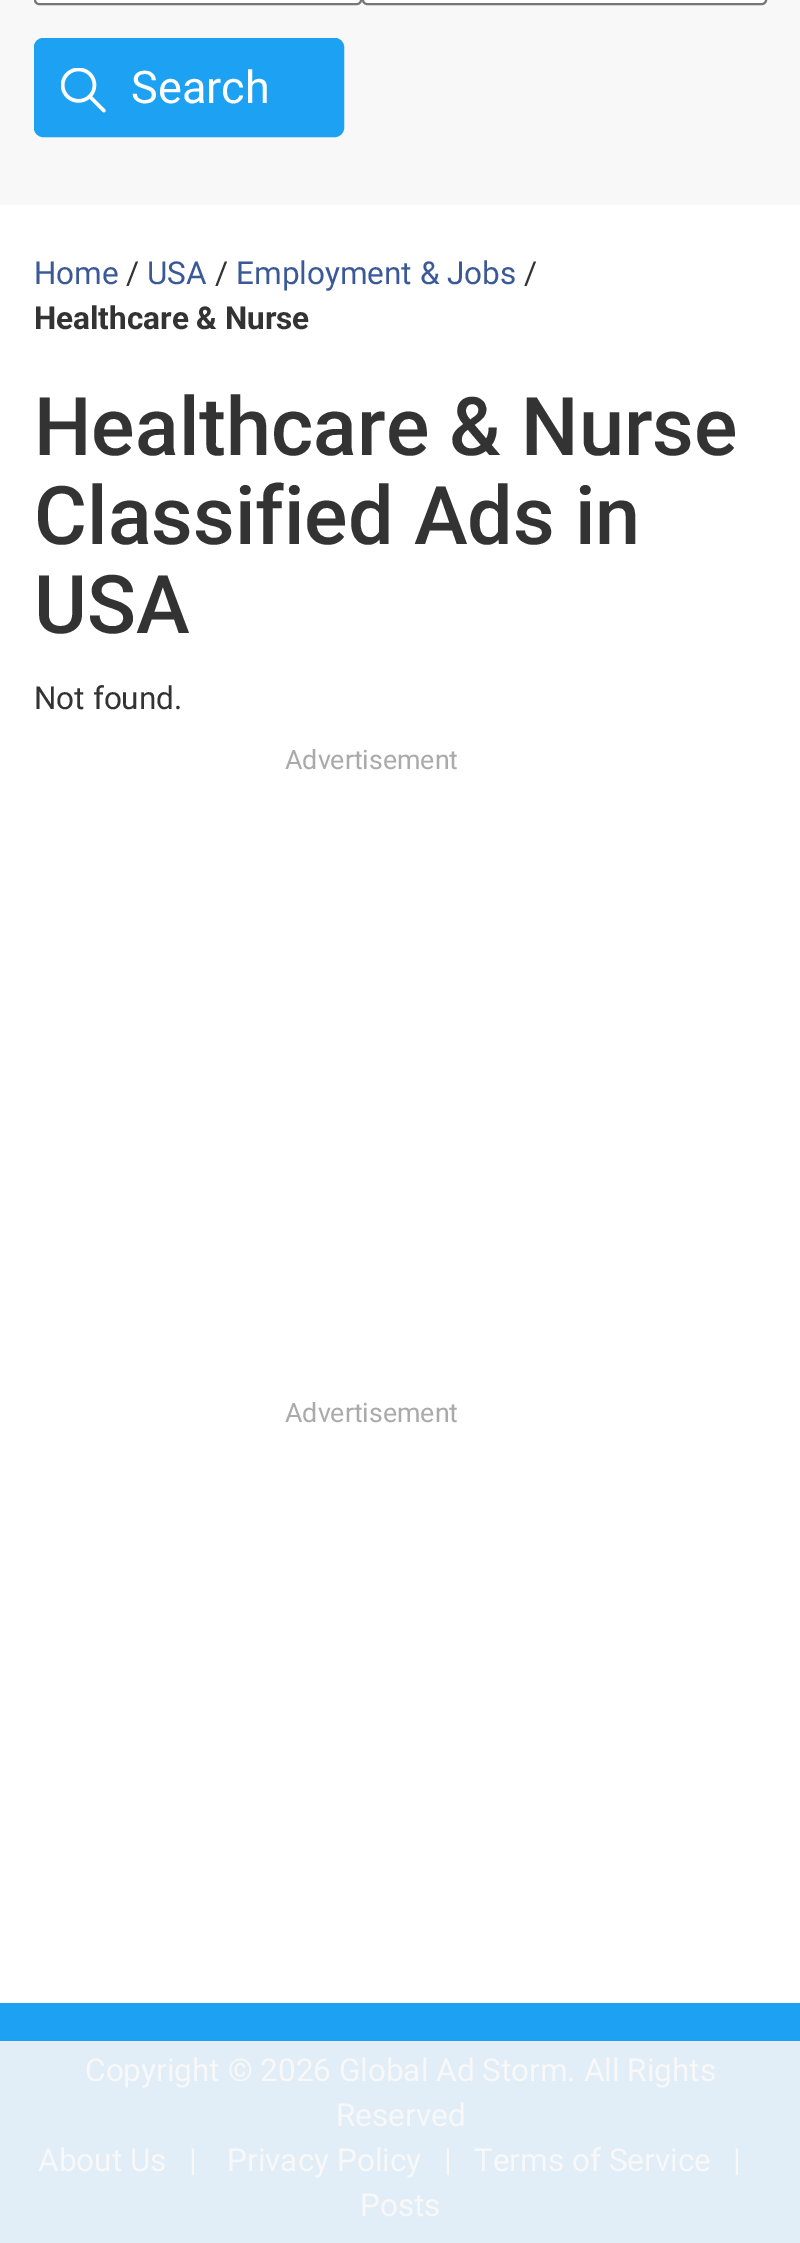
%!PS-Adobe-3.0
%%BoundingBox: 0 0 800 2243
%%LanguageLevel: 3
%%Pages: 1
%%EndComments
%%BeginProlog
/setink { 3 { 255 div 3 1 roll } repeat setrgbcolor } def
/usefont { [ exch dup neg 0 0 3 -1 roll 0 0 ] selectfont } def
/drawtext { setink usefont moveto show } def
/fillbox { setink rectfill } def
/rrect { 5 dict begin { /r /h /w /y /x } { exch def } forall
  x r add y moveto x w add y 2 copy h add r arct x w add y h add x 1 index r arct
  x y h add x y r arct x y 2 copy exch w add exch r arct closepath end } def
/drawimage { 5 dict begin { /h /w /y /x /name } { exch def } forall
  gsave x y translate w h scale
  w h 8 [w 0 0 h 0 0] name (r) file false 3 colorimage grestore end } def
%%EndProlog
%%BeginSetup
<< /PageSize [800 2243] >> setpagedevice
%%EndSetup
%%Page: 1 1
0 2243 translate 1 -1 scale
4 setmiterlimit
0 0 800 2243 255 255 255 fillbox
0 0 800 205 248 248 248 fillbox
255 255 255 setink
35 -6 326 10 4 rrect gsave fill grestore
118 118 118 setink
2 setlinewidth
stroke
255 255 255 setink
363 -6 403 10 4 rrect gsave fill grestore
118 118 118 setink
stroke
29 161 242 setink
35 39 308 97 8 rrect gsave fill grestore
stroke
(assets/img1.rgb) 61 68 45 45 drawimage
(Search) 131 103 /Roboto-Regular 45 255 255 255 drawtext
(Home) 34 284 /Roboto-Regular 31.5 59 89 152 drawtext
(/) 126 284 /Roboto-Regular 31.5 51 51 51 drawtext
(USA) 147 284 /Roboto-Regular 31.5 59 89 152 drawtext
(/) 215 284 /Roboto-Regular 31.5 51 51 51 drawtext
(Employment & Jobs) 236 284 /Roboto-Regular 31.5 59 89 152 drawtext
(/) 524 284 /Roboto-Regular 31.5 51 51 51 drawtext
(Healthcare & Nurse) 34 329 /Roboto-Bold 31.5 51 51 51 drawtext
(Healthcare & Nurse) 34 455 /Roboto-Medium 81 51 51 51 drawtext
(Classified Ads in) 34 544 /Roboto-Medium 81 51 51 51 drawtext
(USA) 34 633 /Roboto-Medium 81 51 51 51 drawtext
(Not found.) 34 709 /Roboto-Regular 31.5 51 51 51 drawtext
(Advertisement) 285 769 /Roboto-Regular 26.75 170 170 170 drawtext
(Advertisement) 285 1422 /Roboto-Regular 26.75 170 170 170 drawtext
0 2003 800 38 29 161 242 fillbox
0 2041 800 202 225 238 247 fillbox
(Copyright © 2026 Global Ad Storm. All Rights) 85 2081 /Roboto-Regular 31.5 248 248 248 drawtext
(Reserved) 336 2126 /Roboto-Regular 31.5 248 248 248 drawtext
(About Us) 38 2171 /Roboto-Regular 31.5 248 248 248 drawtext
(|) 189 2171 /Roboto-Regular 31.5 248 248 248 drawtext
(Privacy Policy) 227 2171 /Roboto-Regular 31.5 248 248 248 drawtext
(|) 444 2171 /Roboto-Regular 31.5 248 248 248 drawtext
(Terms of Service) 474 2171 /Roboto-Regular 31.5 248 248 248 drawtext
(|) 733 2171 /Roboto-Regular 31.5 248 248 248 drawtext
(Posts) 360 2216 /Roboto-Regular 31.5 248 248 248 drawtext
showpage
%%EOF
